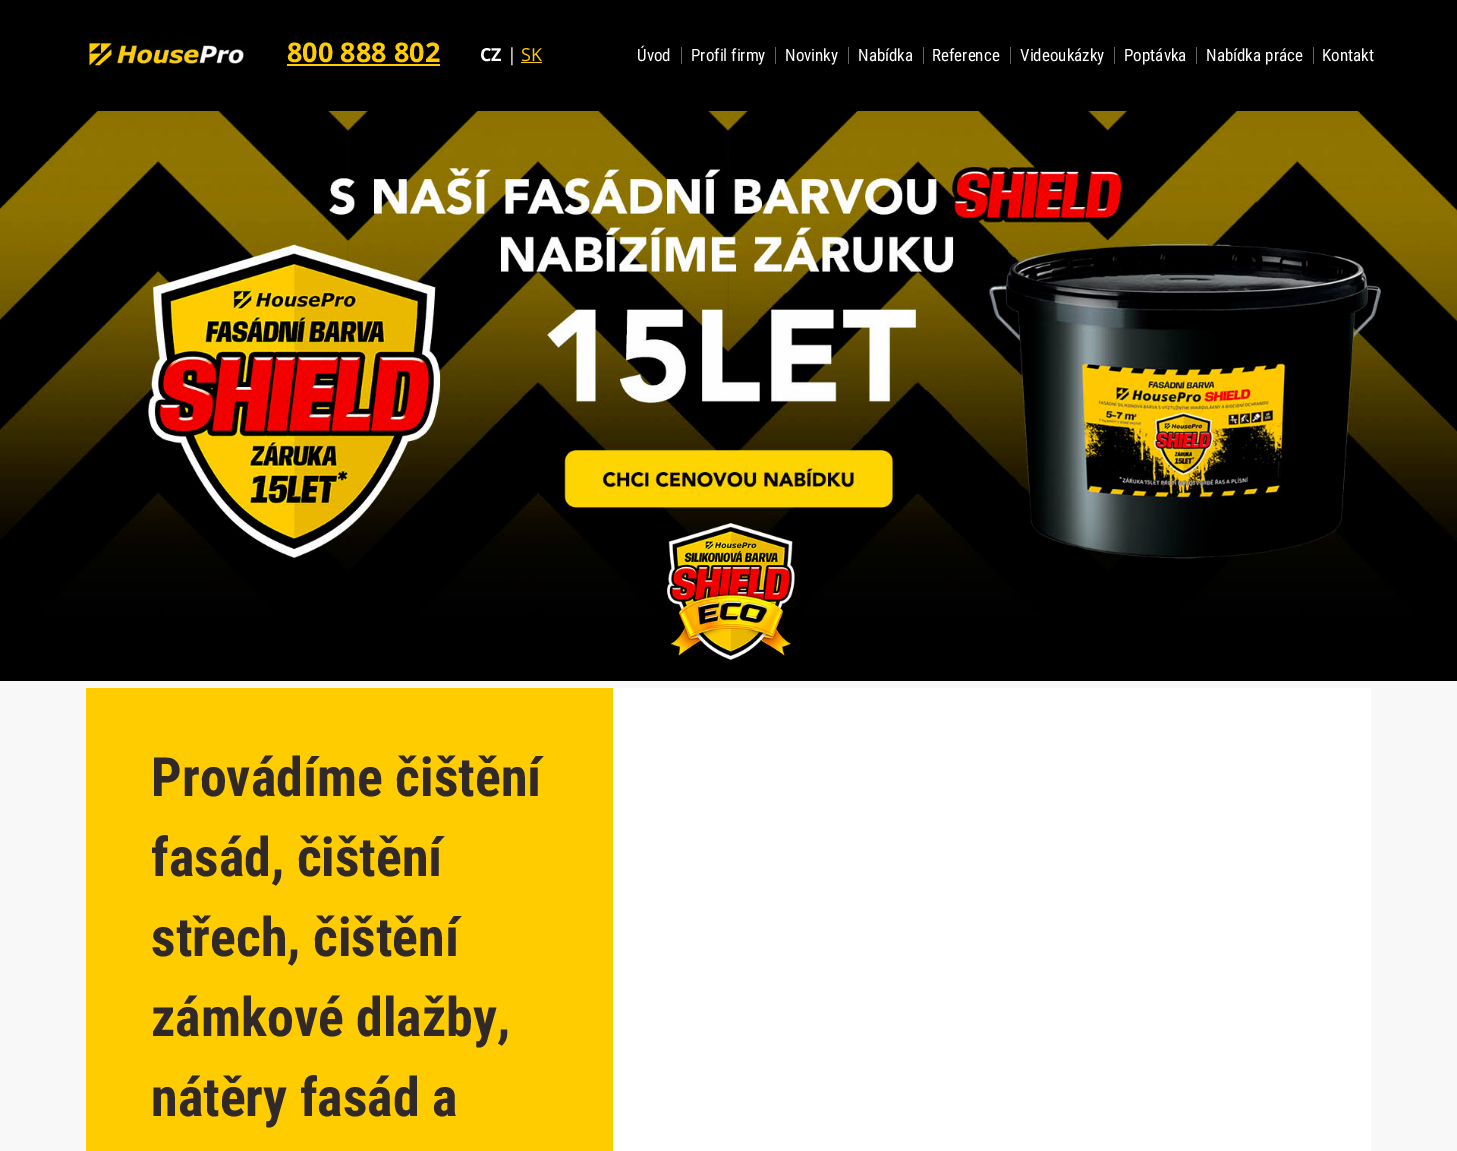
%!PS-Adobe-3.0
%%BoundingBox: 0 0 1457 1151
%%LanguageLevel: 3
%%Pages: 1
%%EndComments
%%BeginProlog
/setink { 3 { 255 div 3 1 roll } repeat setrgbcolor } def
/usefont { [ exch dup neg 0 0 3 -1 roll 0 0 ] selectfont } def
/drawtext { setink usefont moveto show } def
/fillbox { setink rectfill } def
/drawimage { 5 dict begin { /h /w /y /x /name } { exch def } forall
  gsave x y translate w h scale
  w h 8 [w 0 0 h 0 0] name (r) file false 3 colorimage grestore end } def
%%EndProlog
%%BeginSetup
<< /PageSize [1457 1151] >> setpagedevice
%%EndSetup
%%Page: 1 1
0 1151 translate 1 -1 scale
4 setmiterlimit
0 0 1457 1151 248 248 248 fillbox
0 0 1457 111 0 0 0 fillbox
(assets/img1.rgb) 86 38 161 32 drawimage
(800 888 802) 287 62 /OpenSans-Bold 27 255 204 0 drawtext
287 64 153 2 255 204 0 fillbox
(CZ) 480 61 /OpenSans-Bold 18 255 255 255 drawtext
(|) 507 61 /OpenSans-Regular 18 255 255 255 drawtext
(SK) 521 61 /OpenSans-Regular 18 255 204 0 drawtext
521 62 21 1 255 204 0 fillbox
(Úvod) 637 61 /RobotoCondensed-Regular 17 255 255 255 drawtext
681 47 1 17 98 98 98 fillbox
(Profil firmy) 691 61 /RobotoCondensed-Regular 17 255 255 255 drawtext
775 47 1 17 98 98 98 fillbox
(Novinky) 785 61 /RobotoCondensed-Regular 17 255 255 255 drawtext
848 47 1 17 98 98 98 fillbox
(Nabídka) 858 61 /RobotoCondensed-Regular 17 255 255 255 drawtext
923 47 1 17 98 98 98 fillbox
(Reference) 932 61 /RobotoCondensed-Regular 17 255 255 255 drawtext
1010 47 1 17 98 98 98 fillbox
(Videoukázky) 1020 61 /RobotoCondensed-Regular 17 255 255 255 drawtext
1114 47 1 17 98 98 98 fillbox
(Poptávka) 1124 61 /RobotoCondensed-Regular 17 255 255 255 drawtext
1196 47 1 17 98 98 98 fillbox
(Nabídka práce) 1206 61 /RobotoCondensed-Regular 17 255 255 255 drawtext
1313 47 1 17 98 98 98 fillbox
(Kontakt) 1322 61 /RobotoCondensed-Regular 17 255 255 255 drawtext
(assets/img2.rgb) 0 111 1457 570 drawimage
613 688 758 463 255 255 255 fillbox
86 688 527 463 255 204 0 fillbox
(Provádíme čištění) 151 796 /RobotoCondensed-Bold 54 49 40 40 drawtext
(fasád, čištění) 151 876 /RobotoCondensed-Bold 54 49 40 40 drawtext
(střech, čištění) 151 956 /RobotoCondensed-Bold 54 49 40 40 drawtext
(zámkové dlažby,) 151 1036 /RobotoCondensed-Bold 54 49 40 40 drawtext
(nátěry fasád a) 151 1116 /RobotoCondensed-Bold 54 49 40 40 drawtext
showpage
%%EOF
